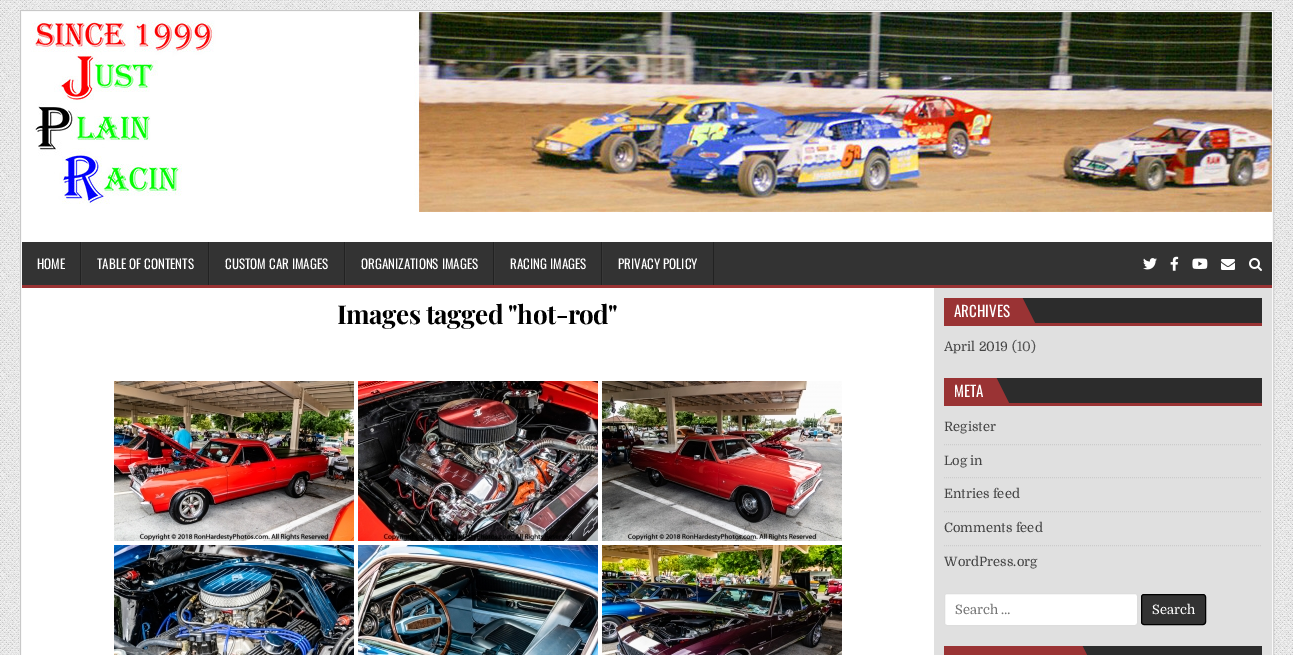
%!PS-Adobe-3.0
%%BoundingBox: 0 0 1293 655
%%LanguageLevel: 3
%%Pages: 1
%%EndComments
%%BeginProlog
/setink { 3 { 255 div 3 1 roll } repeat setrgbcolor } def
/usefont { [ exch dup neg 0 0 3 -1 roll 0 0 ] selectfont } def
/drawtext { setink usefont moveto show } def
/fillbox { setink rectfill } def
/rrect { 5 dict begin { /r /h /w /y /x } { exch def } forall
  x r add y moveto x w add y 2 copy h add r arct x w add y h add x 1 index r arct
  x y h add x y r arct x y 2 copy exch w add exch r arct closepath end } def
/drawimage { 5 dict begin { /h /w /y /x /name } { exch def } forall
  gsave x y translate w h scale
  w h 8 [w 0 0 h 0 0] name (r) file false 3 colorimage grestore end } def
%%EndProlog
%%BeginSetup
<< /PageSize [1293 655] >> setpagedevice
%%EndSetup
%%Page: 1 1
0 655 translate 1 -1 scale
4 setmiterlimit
0 0 1293 655 255 255 255 fillbox
(assets/img1.rgb) 0 0 1293 655 drawimage
200 200 200 setink
20.5 10.5 1253 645 rectstroke
249 249 249 setink
21.5 11.5 1251 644 rectstroke
22 12 1250 230 255 255 255 fillbox
(assets/img2.rgb) 30 12 1242 200 drawimage
22 242 1250 43 51 51 51 fillbox
22 285 1250 3 154 51 52 fillbox
80 242 1 43 34 34 34 fillbox
(HOME) 37 269 /Oswald-Regular 13 255 255 255 drawtext
208 242 1 43 34 34 34 fillbox
81 242 1 43 56 56 56 fillbox
(TABLE OF CONTENTS) 97 269 /Oswald-Regular 13 255 255 255 drawtext
344 242 1 43 34 34 34 fillbox
209 242 1 43 56 56 56 fillbox
(CUSTOM CAR IMAGES) 225 269 /Oswald-Regular 13 255 255 255 drawtext
493 242 1 43 34 34 34 fillbox
345 242 1 43 56 56 56 fillbox
(ORGANIZATIONS IMAGES) 361 269 /Oswald-Regular 13 255 255 255 drawtext
601 242 1 43 34 34 34 fillbox
494 242 1 43 56 56 56 fillbox
(RACING IMAGES) 510 269 /Oswald-Regular 13 255 255 255 drawtext
713 242 1 43 34 34 34 fillbox
602 242 1 43 56 56 56 fillbox
(PRIVACY POLICY) 618 269 /Oswald-Regular 13 255 255 255 drawtext
(assets/img3.rgb) 1143 258 14 12 drawimage
(assets/img4.rgb) 1170 256 9 15 drawimage
(assets/img5.rgb) 1192 258 16 11 drawimage
(assets/img6.rgb) 1221 259 14 11 drawimage
(assets/img7.rgb) 1249 258 13 13 drawimage
22 288 912 367 255 255 255 fillbox
/PlayfairDisplay-Bold 26 usefont
0 0 0 setink
337 324 moveto -0.5 0 (Images tagged "hot-rod") ashow
(assets/img8.rgb) 114 381 240 160 drawimage
(assets/img9.rgb) 358 381 240 160 drawimage
(assets/img10.rgb) 602 381 240 160 drawimage
(assets/img11.rgb) 114 545 240 110 drawimage
(assets/img12.rgb) 358 545 240 110 drawimage
(assets/img13.rgb) 602 545 240 110 drawimage
934 288 338 367 224 224 224 fillbox
1022 298 240 25 44 44 44 fillbox
944 323 318 3 154 51 52 fillbox
944 298 76 25 154 51 52 fillbox
(ARCHIVES) 954 317 /Oswald-Regular 15 255 255 255 drawtext
gsave
944 298 318 25 rectclip
154 51 52 setink
1020 323 moveto 1020 293 lineto 1035 323 lineto closepath fill
grestore
(April 2019) 944 351 /Domine-Regular 13 68 68 68 drawtext
(\(10\)) 1012 351 /Domine-Regular 13 85 85 85 drawtext
996 378 266 25 44 44 44 fillbox
944 403 318 3 154 51 52 fillbox
944 378 50 25 154 51 52 fillbox
(META) 954 397 /Oswald-Regular 15 255 255 255 drawtext
gsave
944 378 318 25 rectclip
154 51 52 setink
994 403 moveto 994 373 lineto 1009 403 lineto closepath fill
grestore
204 204 204 setink
[1 1] 0 setdash
944 444.5 moveto 1262 444.5 lineto stroke
(Register) 944 431 /Domine-Regular 13 68 68 68 drawtext
204 204 204 setink
944 477.5 moveto 1262 477.5 lineto stroke
(Log in) 944 465 /Domine-Regular 13 68 68 68 drawtext
204 204 204 setink
944 511.5 moveto 1262 511.5 lineto stroke
(Entries feed) 944 498 /Domine-Regular 13 68 68 68 drawtext
204 204 204 setink
944 545.5 moveto 1262 545.5 lineto stroke
(Comments feed) 944 532 /Domine-Regular 13 68 68 68 drawtext
(WordPress.org) 944 566 /Domine-Regular 13 68 68 68 drawtext
255 255 255 setink
944.5 593.5 193 32 2.5 rrect gsave fill grestore
221 221 221 setink
[] 0 setdash
stroke
(Search …) 955 614 /Domine-Regular 13 117 117 117 drawtext
51 51 51 setink
1141.5 594.5 64 30 2.5 rrect gsave fill grestore
0 0 0 setink
stroke
(Search) 1152 614 /Domine-Regular 13 255 255 255 drawtext
1082 646 180 9 44 44 44 fillbox
944 646 136 9 154 51 52 fillbox
gsave
944 646 318 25 rectclip
1080 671 moveto 1080 641 lineto 1095 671 lineto closepath fill
grestore
showpage
%%EOF
